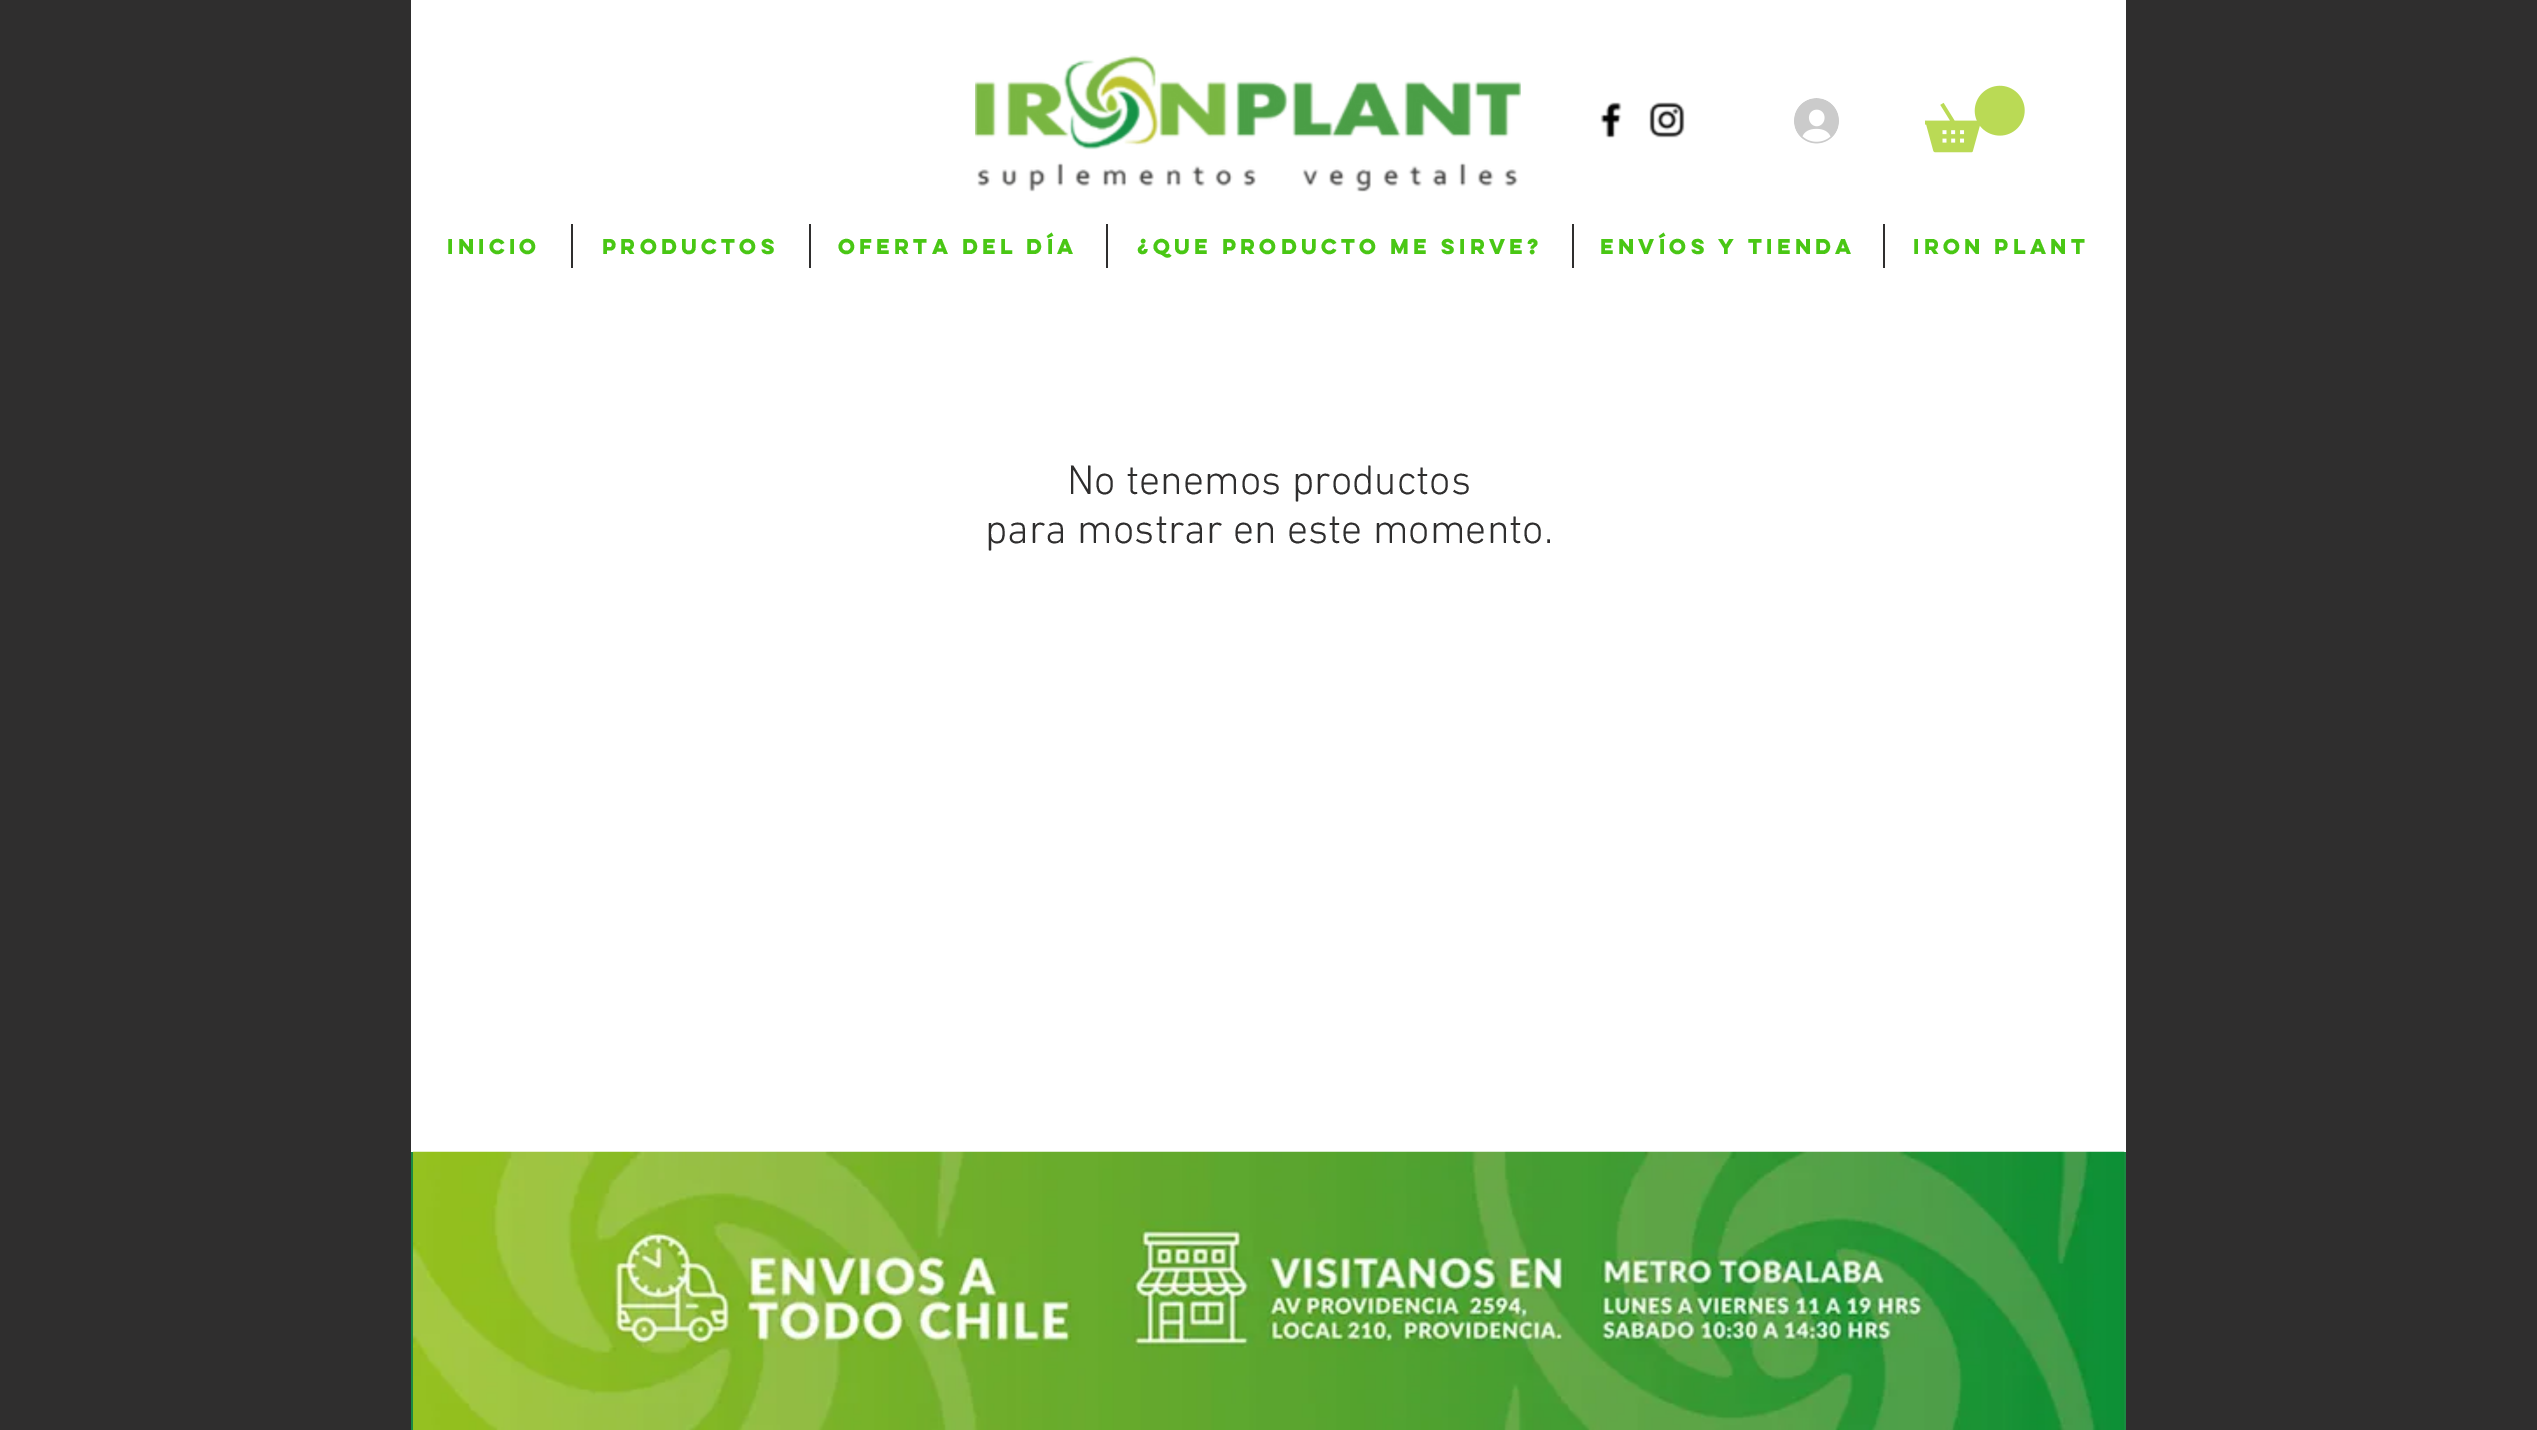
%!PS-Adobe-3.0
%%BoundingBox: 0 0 2537 1430
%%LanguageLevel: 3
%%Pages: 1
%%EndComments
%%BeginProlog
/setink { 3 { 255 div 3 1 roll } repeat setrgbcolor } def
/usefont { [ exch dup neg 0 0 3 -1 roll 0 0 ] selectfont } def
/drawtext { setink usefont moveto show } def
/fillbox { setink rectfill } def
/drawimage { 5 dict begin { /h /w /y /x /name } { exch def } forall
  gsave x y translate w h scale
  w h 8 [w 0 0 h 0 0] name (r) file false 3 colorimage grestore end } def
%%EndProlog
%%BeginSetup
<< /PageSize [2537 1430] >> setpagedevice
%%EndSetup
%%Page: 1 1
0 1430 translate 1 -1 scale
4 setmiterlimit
0 0 2537 1430 47 46 46 fillbox
411 0 1715 1152 255 255 255 fillbox
(assets/img1.rgb) 975 55 546 137 drawimage
(assets/img2.rgb) 1600 102 22 36 drawimage
(assets/img3.rgb) 1649 102 36 36 drawimage
(assets/img4.rgb) 1794 98 45 46 drawimage
(assets/img5.rgb) 1925 85 100 68 drawimage
(INICIO) 447 254 /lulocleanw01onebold-Bold 19.25 73 199 20 drawtext
571 224 2 44 47 46 46 fillbox
(PRODUCTOS) 602 254 /lulocleanw01onebold-Bold 19.25 73 199 20 drawtext
809 224 2 44 47 46 46 fillbox
(OFERTA DEL DÍA) 838 254 /lulocleanw01onebold-Bold 19.25 73 199 20 drawtext
1106 224 2 44 47 46 46 fillbox
(¿QUE PRODUCTO ME SIRVE?) 1137 254 /lulocleanw01onebold-Bold 19.25 73 199 20 drawtext
1572 224 2 44 47 46 46 fillbox
(ENVÍOS Y TIENDA) 1600 254 /lulocleanw01onebold-Bold 19.25 73 199 20 drawtext
1883 224 2 44 47 46 46 fillbox
(IRON PLANT) 1913 254 /lulocleanw01onebold-Bold 19.25 73 199 20 drawtext
(No tenemos productos) 1067 494 /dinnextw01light-Light 42 47 46 46 drawtext
(para mostrar en este momento.) 985 543 /dinnextw01light-Light 42 47 46 46 drawtext
411 1152 1715 278 28 138 67 fillbox
(assets/img6.rgb) 413 1151 1712 279 drawimage
showpage
%%EOF
